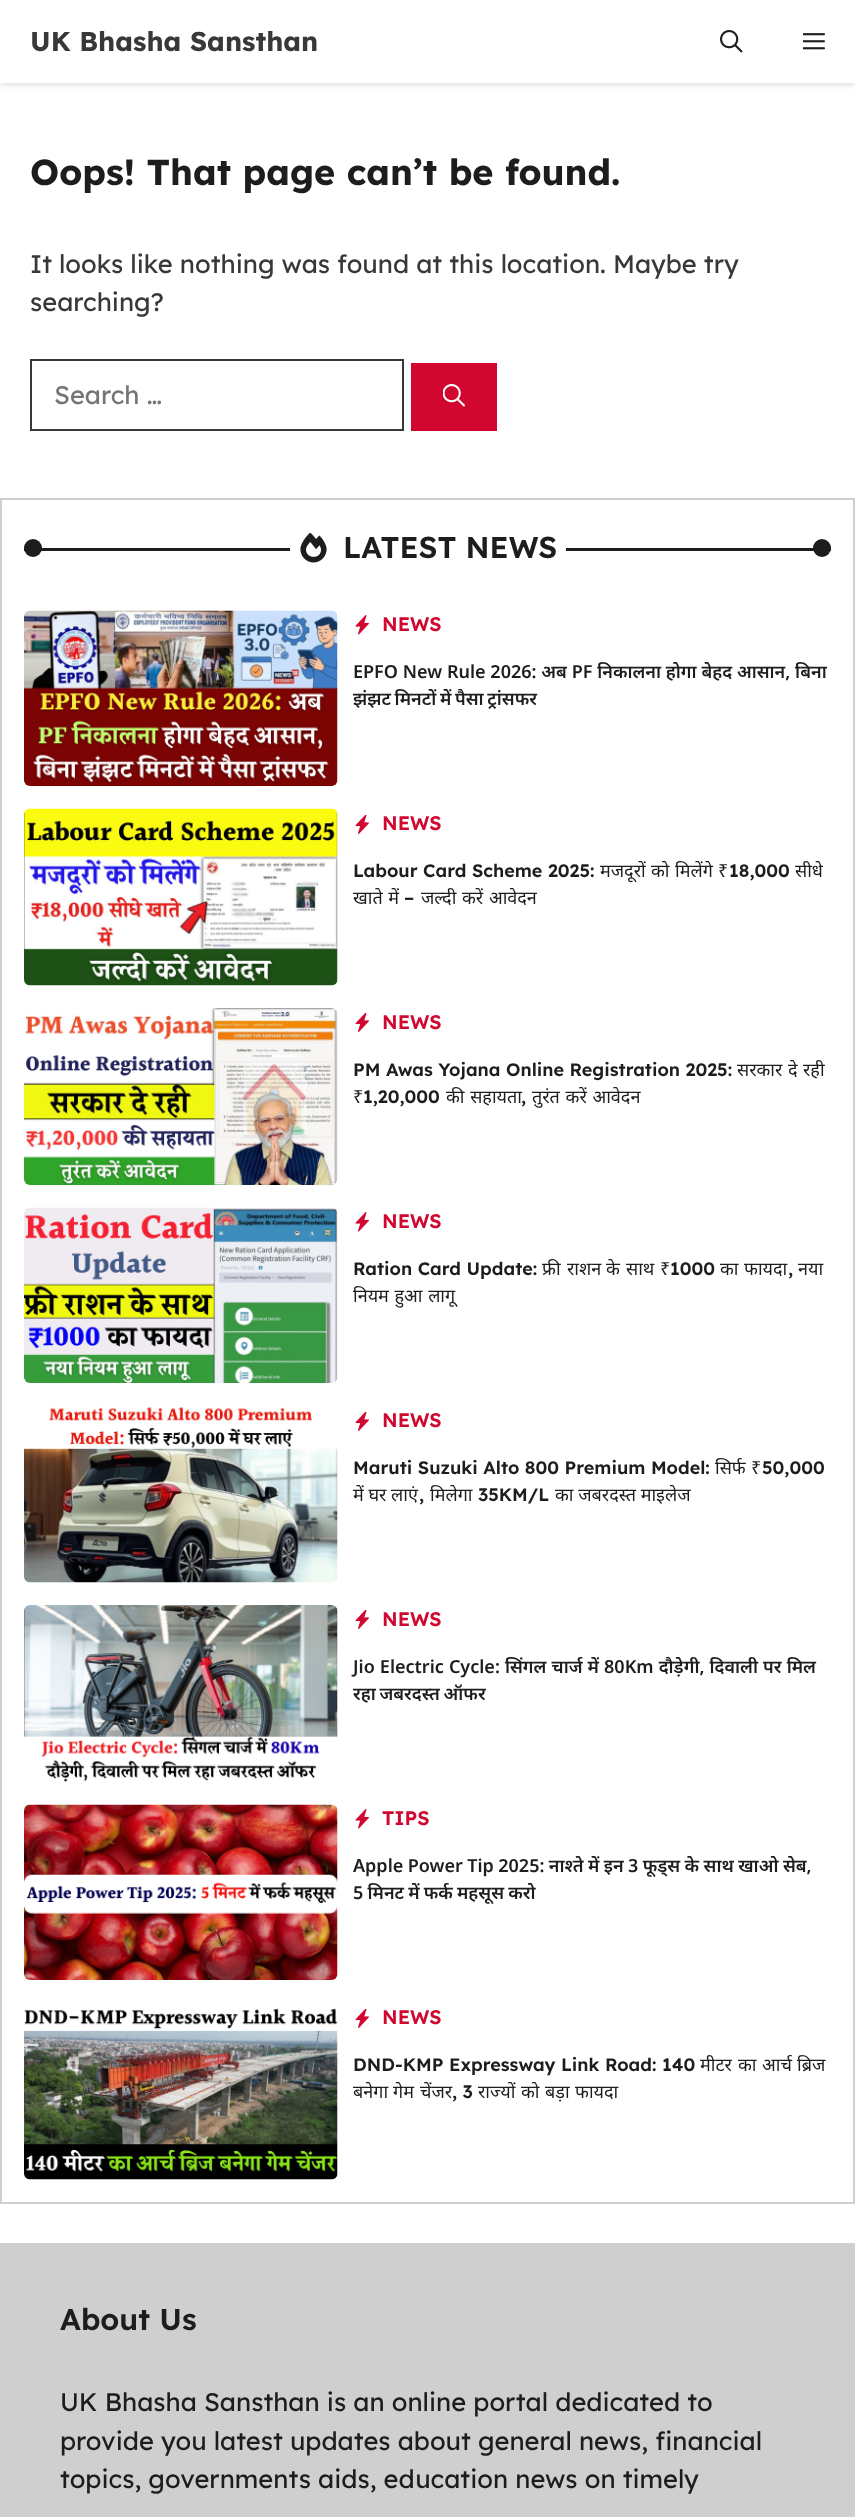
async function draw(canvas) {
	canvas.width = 855;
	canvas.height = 2517;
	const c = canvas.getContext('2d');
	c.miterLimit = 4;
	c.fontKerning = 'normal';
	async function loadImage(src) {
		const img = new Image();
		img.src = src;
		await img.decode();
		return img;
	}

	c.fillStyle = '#fff';
	c.fillRect(0, 0, 855, 2517);
	c.fillStyle = '#00000029';
	c.filter = 'blur(3px)';
	c.beginPath();
	c.rect(0, 2, 855, 82);
	c.fill();
	c.filter = 'none';
	c.fillStyle = '#fff';
	c.fillRect(0, 0, 855, 83);
	c.font = 'bold 27px Lexend Deca';
	c.fillStyle = '#383838';
	c.fillText('UK Bhasha Sansthan', 30, 51);
	c.drawImage(await loadImage('img1.png'), 720, 30, 23, 23);
	c.drawImage(await loadImage('img2.png'), 803, 33, 22, 17);
	c.font = 'bold 36px Lexend Deca';
	c.fillStyle = '#1d1d1d';
	c.fillText('Oops! That page can’t be found.', 30, 185);
	c.font = '25.5px Lexend Deca';
	c.fillStyle = '#383838';
	c.fillText('It looks like nothing was found at this location. Maybe try', 30, 273);
	c.fillText('searching?', 30, 311);
	c.strokeStyle = '#383838';
	c.lineWidth = 2;
	c.strokeRect(31, 360, 372, 70);
	c.fillStyle = '#757575';
	c.fillText('Search …', 54, 404);
	c.fillStyle = '#d1072f';
	c.fillRect(411, 363, 86, 68);
	c.drawImage(await loadImage('img3.png'), 443, 384, 22, 23);
	c.strokeStyle = '#cfcfcf';
	c.strokeRect(1, 499, 853, 1704);
	c.fillStyle = '#1d1d1d';
	c.fillRect(24, 548, 807, 3);
	c.beginPath();
	c.arc(33, 548, 9, 0, 2 * Math.PI);
	c.fill();
	c.fillStyle = '#fff';
	c.fillRect(290, 548, 276, 3);
	c.drawImage(await loadImage('img4.png'), 300, 533, 27, 30);
	c.font = '600 30px Lexend Deca';
	c.fillStyle = '#1d1d1d';
	c.fillText('LATEST NEWS', 343, 558);
	c.beginPath();
	c.arc(822, 548, 9, 0, 2 * Math.PI);
	c.fill();
	c.drawImage(await loadImage('img5.png'), 24, 610, 314, 176);
	c.drawImage(await loadImage('img6.png'), 355, 615, 14, 20);
	c.font = '600 19.5px Lexend Deca';
	c.fillStyle = '#d1072f';
	c.fillText('NEWS', 382, 631);
	c.wordSpacing = '0.1px';
	c.font = '600 18px Noto Sans';
	c.fillStyle = '#1d1d1d';
	c.fillText('EPFO New Rule 2026: अब PF निकालना होगा बेहद आसान, बिना', 353, 678);
	c.wordSpacing = '-1px';
	c.fillText('झंझट मिनटों में पैसा ट्रांसफर', 353, 705);
	c.drawImage(await loadImage('img7.png'), 24, 808, 314, 178);
	c.drawImage(await loadImage('img8.png'), 355, 815, 14, 19);
	c.wordSpacing = '0px';
	c.font = '600 19.5px Lexend Deca';
	c.fillStyle = '#d1072f';
	c.fillText('NEWS', 382, 830);
	c.font = '600 18px Lexend Deca';
	c.fillStyle = '#1d1d1d';
	c.fillText('Labour Card Scheme 2025:', 353, 877);
	c.font = '18px Noto Sans';
	for (const [text, x, y] of [
		['मजदूरों', 600, 877],
		['को', 651, 877],
		['मिलेंगे', 675, 877],
		['₹', 718, 877],
	]) {
		c.fillText(text, x, y);
	}
	c.font = '600 18px Lexend Deca';
	c.fillText('18,000', 729, 877);
	c.font = '18px Noto Sans';
	c.fillText('सीधे', 795, 877);
	c.wordSpacing = '1px';
	c.fillText('खाते में', 353, 904);
	c.wordSpacing = '0px';
	c.font = '600 18px Lexend Deca';
	c.fillText('–', 404, 904);
	c.wordSpacing = '1px';
	c.font = '18px Noto Sans';
	c.fillText('जल्दी करें आवेदन', 421, 904);
	c.drawImage(await loadImage('img9.png'), 24, 1008, 314, 177);
	c.drawImage(await loadImage('img8.png'), 355, 1013, 14, 19);
	c.wordSpacing = '0px';
	c.font = '600 19.5px Lexend Deca';
	c.fillStyle = '#d1072f';
	c.fillText('NEWS', 382, 1029);
	c.font = '600 18px Lexend Deca';
	c.fillStyle = '#1d1d1d';
	c.fillText('PM Awas Yojana Online Registration 2025:', 353, 1076);
	c.font = '18px Noto Sans';
	for (const [text, x, y] of [
		['सरकार', 737, 1076],
		['दे', 788, 1076],
		['रही', 803, 1076],
		['₹', 353, 1103],
	]) {
		c.fillText(text, x, y);
	}
	c.font = '600 18px Lexend Deca';
	c.fillText('1,20,000', 363, 1103);
	c.wordSpacing = '1px';
	c.font = '18px Noto Sans';
	c.fillText('की सहायता', 446, 1103);
	c.wordSpacing = '0px';
	c.font = '600 18px Lexend Deca';
	c.fillText(',', 521, 1103);
	c.wordSpacing = '1px';
	c.font = '18px Noto Sans';
	c.fillText('तुरंत करें आवेदन', 532, 1103);
	c.drawImage(await loadImage('img10.png'), 24, 1207, 314, 176);
	c.drawImage(await loadImage('img6.png'), 355, 1212, 14, 20);
	c.wordSpacing = '0px';
	c.font = '600 19.5px Lexend Deca';
	c.fillStyle = '#d1072f';
	c.fillText('NEWS', 382, 1228);
	c.font = '600 18px Lexend Deca';
	c.fillStyle = '#1d1d1d';
	c.fillText('Ration Card Update:', 353, 1275);
	c.font = '18px Noto Sans';
	for (const [text, x, y] of [
		['फ्री', 542, 1275],
		['राशन', 567, 1275],
		['के', 606, 1275],
		['साथ', 626, 1275],
		['₹', 660, 1275],
	]) {
		c.fillText(text, x, y);
	}
	c.font = '600 18px Lexend Deca';
	c.fillText('1000', 670, 1275);
	c.font = '18px Noto Sans';
	c.fillText('का', 720, 1275);
	c.fillText('फायदा', 744, 1275);
	c.font = '600 18px Lexend Deca';
	c.fillText(',', 788, 1275);
	c.font = '18px Noto Sans';
	c.fillText('नया', 798, 1275);
	c.wordSpacing = '1px';
	c.fillText('नियम हुआ लागू', 353, 1302);
	c.drawImage(await loadImage('img11.png'), 24, 1406, 314, 177);
	c.drawImage(await loadImage('img8.png'), 355, 1412, 14, 19);
	c.wordSpacing = '0px';
	c.font = '600 19.5px Lexend Deca';
	c.fillStyle = '#d1072f';
	c.fillText('NEWS', 382, 1427);
	c.font = '600 18px Lexend Deca';
	c.fillStyle = '#1d1d1d';
	c.fillText('Maruti Suzuki Alto 800 Premium Model:', 353, 1474);
	c.font = '18px Noto Sans';
	c.fillText('सिर्फ', 715, 1474);
	c.fillText('₹', 751, 1474);
	c.font = '600 18px Lexend Deca';
	c.fillText('50,000', 762, 1474);
	c.font = '18px Noto Sans';
	c.fillText('में घर लाएं', 353, 1501);
	c.font = '600 18px Lexend Deca';
	c.fillText(',', 419, 1501);
	c.font = '18px Noto Sans';
	c.fillText('मिलेगा', 430, 1501);
	c.font = '600 18px Lexend Deca';
	c.fillText('35KM/L', 478, 1501);
	c.font = '18px Noto Sans';
	c.fillText('का जबरदस्त माइलेज', 555, 1501);
	c.drawImage(await loadImage('img12.png'), 24, 1605, 314, 177);
	c.drawImage(await loadImage('img8.png'), 355, 1610, 14, 19);
	c.font = '600 19.5px Lexend Deca';
	c.fillStyle = '#d1072f';
	c.fillText('NEWS', 382, 1626);
	c.wordSpacing = '0.4px';
	c.font = '600 18px Noto Sans';
	c.fillStyle = '#1d1d1d';
	c.fillText('Jio Electric Cycle: सिंगल चार्ज में 80Km दौड़ेगी, दिवाली पर मिल', 353, 1673);
	c.wordSpacing = '-1px';
	c.fillText('रहा जबरदस्त ऑफर', 353, 1700);
	c.drawImage(await loadImage('img13.png'), 24, 1804, 314, 176);
	c.drawImage(await loadImage('img6.png'), 355, 1809, 14, 20);
	c.wordSpacing = '0px';
	c.font = '600 19.5px Lexend Deca';
	c.fillStyle = '#d1072f';
	c.fillText('TIPS', 382, 1825);
	c.wordSpacing = '-0.25px';
	c.font = '600 18px Noto Sans';
	c.fillStyle = '#1d1d1d';
	c.fillText('Apple Power Tip 2025: नाश्ते में इन 3 फूड्स के साथ खाओ सेब,', 353, 1872);
	c.wordSpacing = '-0.5px';
	c.fillText('5 मिनट में फर्क महसूस करो', 353, 1899);
	c.drawImage(await loadImage('img14.png'), 24, 2008, 314, 172);
	c.drawImage(await loadImage('img8.png'), 355, 2009, 14, 19);
	c.wordSpacing = '0px';
	c.font = '600 19.5px Lexend Deca';
	c.fillStyle = '#d1072f';
	c.fillText('NEWS', 382, 2024);
	c.font = '600 18px Lexend Deca';
	c.fillStyle = '#1d1d1d';
	c.fillText('DND-KMP Expressway Link Road: 140', 353, 2071);
	c.font = '18px Noto Sans';
	for (const [text, x, y] of [
		['मीटर', 700, 2071],
		['का', 738, 2071],
		['आर्च', 762, 2071],
		['ब्रिज', 797, 2071],
		['बनेगा', 353, 2098],
		['गेम', 393, 2098],
		['चेंजर', 420, 2098],
	]) {
		c.fillText(text, x, y);
	}
	c.font = '600 18px Lexend Deca';
	c.fillText(', 3', 452, 2098);
	c.font = '18px Noto Sans';
	for (const [text, x, y] of [
		['राज्यों', 478, 2098],
		['को', 521, 2098],
		['बड़ा', 545, 2098],
		['फायदा', 575, 2098],
	]) {
		c.fillText(text, x, y);
	}
	c.fillStyle = '#cfcfcf';
	c.fillRect(0, 2243, 855, 274);
	c.font = '600 30px Lexend Deca';
	c.fillStyle = '#1d1d1d';
	c.fillText('About Us', 60, 2330);
	c.font = '25.5px Lexend Deca';
	for (const [text, x, y] of [
		['UK Bhasha Sansthan is an online portal dedicated to', 60, 2411],
		['provide you latest updates about general news, financial', 60, 2450],
		['topics, governments aids, education news on timely', 60, 2488],
	]) {
		c.fillText(text, x, y);
	}
}

draw(document.querySelector('canvas'));
